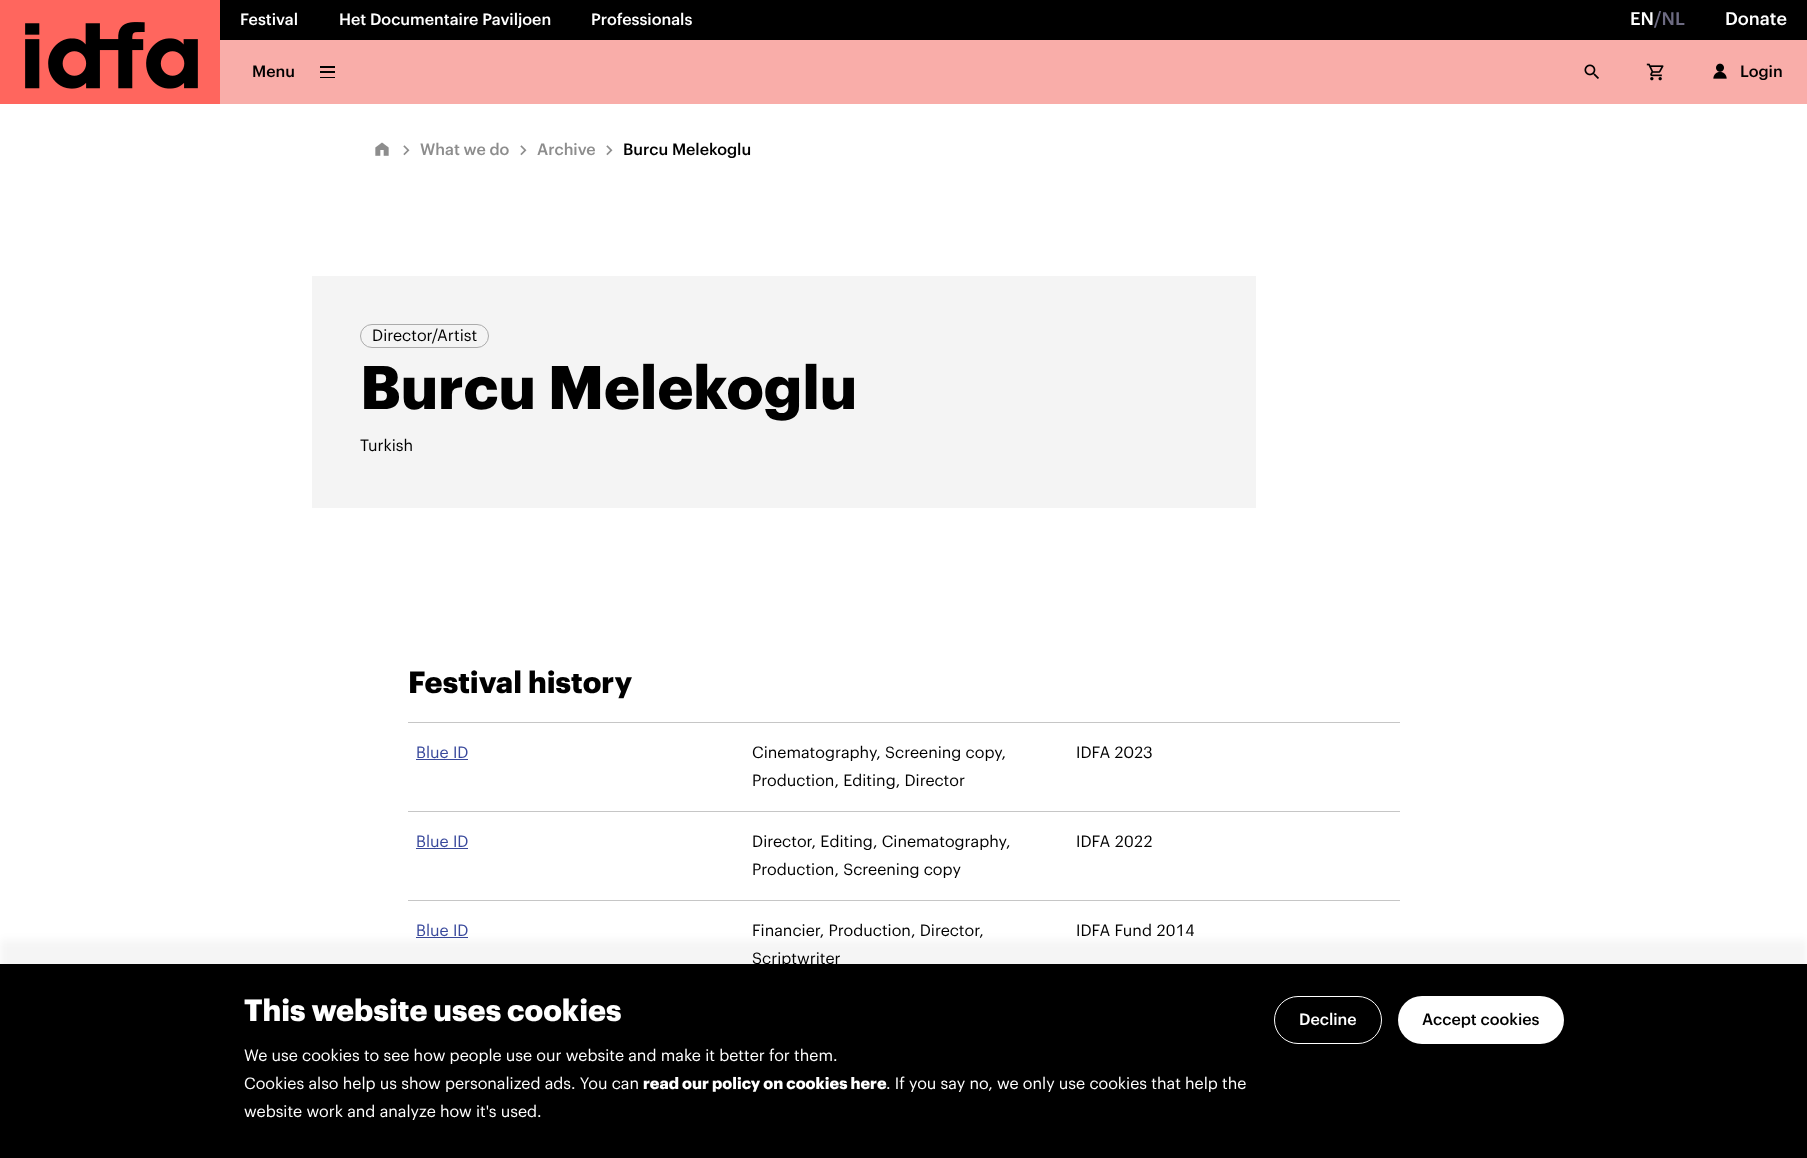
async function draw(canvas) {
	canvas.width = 1807;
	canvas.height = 1158;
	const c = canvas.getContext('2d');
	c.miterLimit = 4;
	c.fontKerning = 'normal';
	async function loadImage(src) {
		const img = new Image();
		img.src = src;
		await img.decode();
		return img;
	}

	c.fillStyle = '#fff';
	c.fillRect(0, 0, 1807, 1158);
	c.fillStyle = '#ff665e';
	c.fillRect(0, 0, 220, 104);
	c.drawImage(await loadImage('img1.png'), 25, 22, 173, 67);
	c.fillStyle = '#000';
	c.fillRect(220, 0, 1587, 40);
	c.font = '500 16px Graphik';
	c.fillStyle = '#fff';
	for (const [text, x, y] of [
		['Festival', 240, 25],
		['Het Documentaire Paviljoen', 339, 25],
		['Professionals', 591, 25],
	]) {
		c.fillText(text, x, y);
	}
	c.font = '500 18px Graphik';
	c.fillText('EN', 1630, 25);
	c.fillStyle = '#6d6b82';
	c.fillText('/NL', 1654, 25);
	c.fillStyle = '#fff';
	c.fillText('Donate', 1725, 25);
	c.fillStyle = '#f9ada9';
	c.fillRect(220, 40, 1587, 64);
	c.font = '500 16px Graphik';
	c.fillStyle = '#000';
	c.fillText('Menu', 252, 77);
	for (const [x, y, w, h, color] of [
		[320, 66, 15, 2, '#000'],
		[320, 71, 15, 2, '#000'],
		[320, 77, 15, 1, '#000'],
	]) {
		c.fillStyle = color;
		c.fillRect(x, y, w, h);
	}
	c.drawImage(await loadImage('img2.png'), 1584, 64, 15, 15);
	c.drawImage(await loadImage('img3.png'), 1646, 63, 18, 18);
	c.drawImage(await loadImage('img4.png'), 1713, 63, 14, 16);
	c.fillText('Login', 1740, 77);
	c.drawImage(await loadImage('img5.png'), 375, 142, 14, 14);
	c.drawImage(await loadImage('img6.png'), 403, 145, 7, 11);
	c.fillStyle = '#8d8d8d';
	c.fillText('What we do', 420, 155);
	c.drawImage(await loadImage('img6.png'), 520, 145, 7, 11);
	c.fillText('Archive', 537, 155);
	c.drawImage(await loadImage('img6.png'), 606, 145, 7, 11);
	c.fillStyle = '#000';
	c.fillText('Burcu Melekoglu', 623, 155);
	c.fillStyle = '#f4f4f4';
	c.fillRect(312, 276, 944, 232);
	c.beginPath();
	c.roundRect(360.5, 324.5, 128, 23, 11.5);
	c.strokeStyle = '#ababab';
	c.stroke();
	c.font = '16px Graphik';
	c.fillStyle = '#000';
	c.fillText('Director/Artist', 372, 341);
	c.font = 'bold 60px Graphik';
	c.fillText('Burcu Melekoglu', 360, 409);
	c.font = '16px Graphik';
	c.fillText('Turkish', 360, 451);
	c.font = 'bold 30px Graphik';
	c.fillText('Festival history', 408, 693);
	c.fillStyle = '#c6c6c6';
	c.fillRect(408, 722, 992, 1);
	c.font = '16px Graphik';
	c.fillStyle = '#39499c';
	c.fillText('Blue ID', 416, 758);
	c.fillRect(416, 759, 52, 1);
	c.fillStyle = '#000';
	for (const [text, x, y] of [
		['Cinematography, Screening copy,', 752, 758],
		['Production, Editing, Director', 752, 786],
		['IDFA 2023', 1076, 758],
	]) {
		c.fillText(text, x, y);
	}
	c.fillStyle = '#c6c6c6';
	c.fillRect(408, 811, 992, 1);
	c.fillStyle = '#39499c';
	c.fillText('Blue ID', 416, 847);
	c.fillRect(416, 848, 52, 1);
	c.fillStyle = '#000';
	c.fillText('Director, Editing, Cinematography,', 752, 847);
	c.fillText('Production, Screening copy', 752, 875);
	c.font = '16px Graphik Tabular';
	c.fillText('IDFA 2022', 1076, 847);
	c.fillStyle = '#c6c6c6';
	c.fillRect(408, 900, 992, 1);
	c.font = '16px Graphik';
	c.fillStyle = '#39499c';
	c.fillText('Blue ID', 416, 936);
	c.fillRect(416, 937, 52, 1);
	c.fillStyle = '#000';
	c.fillText('Financier, Production, Director,', 752, 936);
	c.fillText('Scriptwriter', 752, 964);
	c.font = '16px Graphik Tabular';
	c.fillText('IDFA Fund 2014', 1076, 936);
	c.fillStyle = '#0000000a';
	c.filter = 'blur(4px)';
	c.beginPath();
	c.rect(0, 940, 1807, 194);
	c.fill();
	c.filter = 'none';
	c.fillStyle = '#000';
	c.fillRect(0, 964, 1807, 194);
	c.font = 'bold 30px Graphik';
	c.fillStyle = '#fff';
	c.fillText('This website uses cookies', 244, 1021);
	c.font = '16px Graphik';
	c.fillText('We use cookies to see how people use our website and make it better for them.', 244, 1061);
	c.fillText('Cookies also help us show personalized ads. You can', 244, 1089);
	c.font = 'bold 16px Graphik';
	c.fillText('read our policy on cookies here', 643, 1089);
	c.font = '16px Graphik';
	c.fillText('. If you say no, we only use cookies that help the', 886, 1089);
	c.fillText('website work and analyze how it\'s used.', 244, 1117);
	c.beginPath();
	c.roundRect(1274.5, 996.5, 107, 47, 23.5);
	c.strokeStyle = '#fff';
	c.stroke();
	c.font = '500 16px Graphik';
	c.fillText('Decline', 1299, 1025);
	c.beginPath();
	c.roundRect(1398, 996, 166, 48, 24);
	c.fill();
	c.fillStyle = '#000';
	c.fillText('Accept cookies', 1422, 1025);
}

draw(document.querySelector('canvas'));
